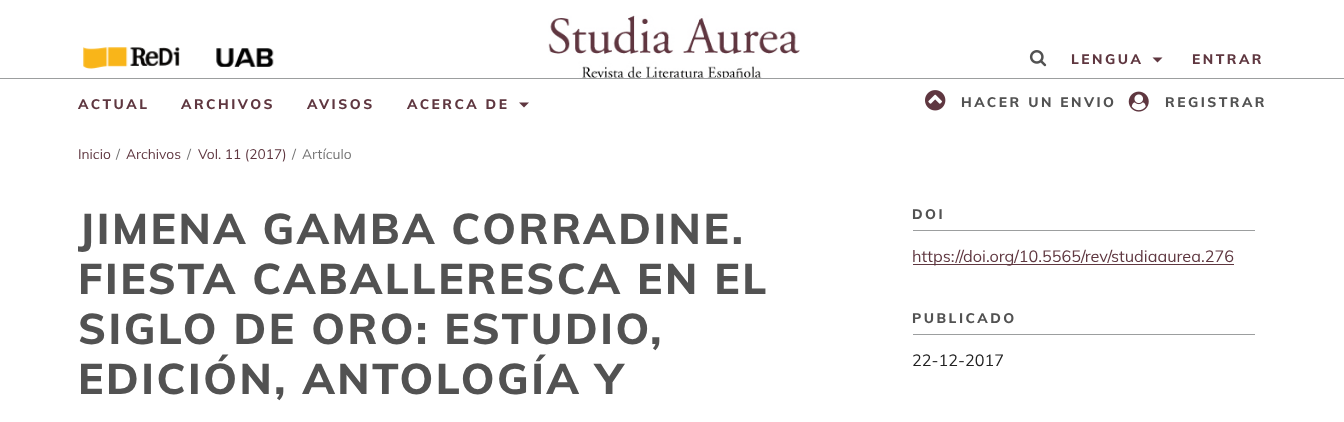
async function draw(canvas) {
	canvas.width = 1344;
	canvas.height = 422;
	const c = canvas.getContext('2d');
	c.miterLimit = 4;
	c.fontKerning = 'normal';
	async function loadImage(src) {
		const img = new Image();
		img.src = src;
		await img.decode();
		return img;
	}

	c.fillStyle = '#fff';
	c.fillRect(0, 0, 1344, 422);
	c.drawImage(await loadImage('img1.png'), 83, 47, 97, 22);
	c.drawImage(await loadImage('img2.png'), 216, 48, 58, 19);
	c.drawImage(await loadImage('img3.png'), 548, 15, 252, 63);
	c.drawImage(await loadImage('img4.png'), 1029, 50, 18, 17);
	c.letterSpacing = '2.5px';
	c.font = '800 13.75px Muli';
	c.fillStyle = '#5f3740';
	c.fillText('LENGUA', 1071, 64);
	c.beginPath();
	c.moveTo(1152.5, 57.5);
	c.lineTo(1162.5, 57.5);
	c.lineTo(1157.5, 62.5);
	c.closePath();
	c.fill();
	c.fillText('ENTRAR', 1192, 64);
	c.fillStyle = '#9c9e9f';
	c.fillRect(0, 78, 1344, 1);
	c.fillStyle = '#5f3740';
	for (const [text, x, y] of [
		['ACTUAL', 78, 109],
		['ARCHIVOS', 181, 109],
		['AVISOS', 307, 109],
		['ACERCA DE', 407, 109],
	]) {
		c.fillText(text, x, y);
	}
	c.beginPath();
	c.moveTo(519, 102.5);
	c.lineTo(529, 102.5);
	c.lineTo(524, 107.5);
	c.closePath();
	c.fill();
	c.drawImage(await loadImage('img5.png'), 925, 90, 21, 21);
	c.fillStyle = '#525252';
	c.fillText('HACER UN ENVIO', 961, 107);
	c.drawImage(await loadImage('img6.png'), 1128, 91, 21, 21);
	c.fillText('REGISTRAR', 1165, 107);
	c.letterSpacing = '0px';
	c.font = '13.75px Muli';
	c.fillStyle = '#5f3740';
	c.fillText('Inicio', 78, 159);
	c.fillStyle = '#757575';
	c.fillText('/', 116, 159);
	c.fillStyle = '#5f3740';
	c.fillText('Archivos', 126, 159);
	c.fillStyle = '#757575';
	c.fillText('/', 187, 159);
	c.fillStyle = '#5f3740';
	c.fillText('Vol. 11 (2017)', 198, 159);
	c.fillStyle = '#757575';
	c.fillText('/', 292, 159);
	c.fillText('Artículo', 302, 159);
	c.letterSpacing = '2.5px';
	c.font = '800 42.5px Muli';
	c.fillStyle = '#525252';
	for (const [text, x, y] of [
		['JIMENA GAMBA CORRADINE.', 78, 244],
		['FIESTA CABALLERESCA EN EL', 78, 294],
		['SIGLO DE ORO: ESTUDIO,', 78, 344],
		['EDICIÓN, ANTOLOGÍA Y', 78, 394],
	]) {
		c.fillText(text, x, y);
	}
	c.fillStyle = '#9c9e9f';
	c.fillRect(913, 230, 342, 1);
	c.font = '800 13.75px Muli';
	c.fillStyle = '#525252';
	c.fillText('DOI', 912, 219);
	c.fillStyle = '#5f3740';
	c.fillRect(913, 264, 321, 1);
	c.letterSpacing = '0px';
	c.font = '16.25px Muli';
	c.fillText('https://doi.org/10.5565/rev/studiaaurea.276', 912, 262);
	c.fillStyle = '#9c9e9f';
	c.fillRect(913, 334, 342, 1);
	c.letterSpacing = '2.5px';
	c.font = '800 13.75px Muli';
	c.fillStyle = '#525252';
	c.fillText('PUBLICADO', 912, 323);
	c.letterSpacing = '0px';
	c.font = '16.25px Muli';
	c.fillStyle = '#212121';
	c.fillText('22-12-2017', 912, 366);
}

draw(document.querySelector('canvas'));
